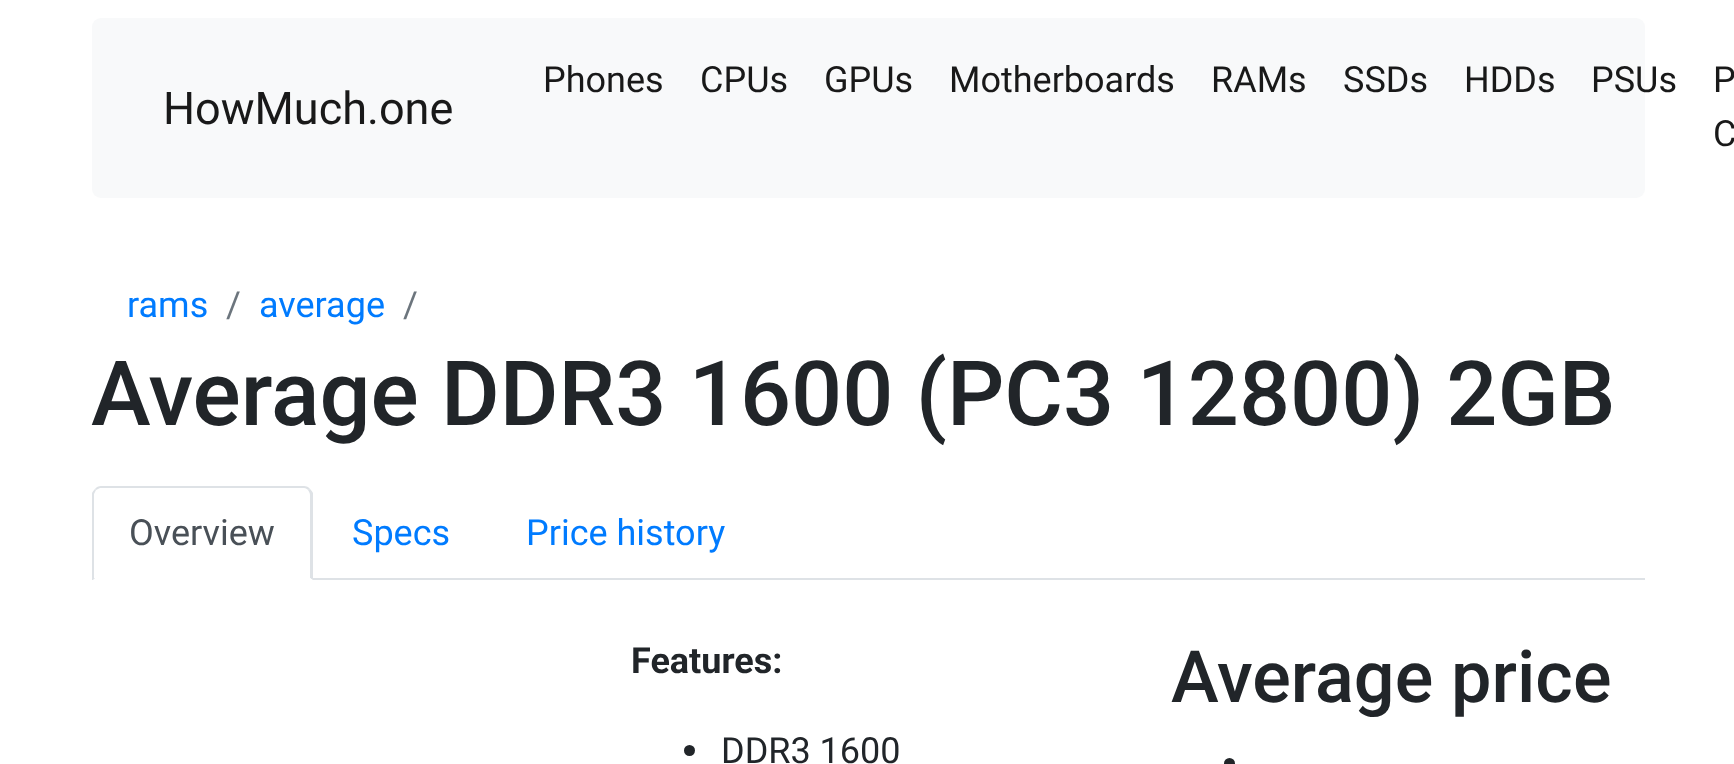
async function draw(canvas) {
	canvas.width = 1734;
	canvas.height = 764;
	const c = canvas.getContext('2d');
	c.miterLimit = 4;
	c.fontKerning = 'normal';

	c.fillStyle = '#fff';
	c.fillRect(0, 0, 1734, 764);
	c.fillStyle = '#f8f9fa';
	c.beginPath();
	c.roundRect(92, 18, 1553, 180, 9);
	c.fill();
	c.font = '45px Roboto';
	c.fillStyle = '#191919';
	c.fillText('HowMuch.one', 163, 124);
	c.font = '36px Roboto';
	for (const [text, x, y] of [
		['Phones', 543, 92],
		['CPUs', 700, 92],
		['GPUs', 824, 92],
		['Motherboards', 949, 92],
		['RAMs', 1211, 92],
		['SSDs', 1343, 92],
		['HDDs', 1464, 92],
		['PSUs', 1591, 92],
		['P', 1713, 92],
		['C', 1713, 146],
	]) {
		c.fillText(text, x, y);
	}
	c.fillStyle = '#007bff';
	c.fillText('rams', 127, 317);
	c.fillStyle = '#6c757d';
	c.fillText('/', 226, 317);
	c.fillStyle = '#007bff';
	c.fillText('average', 259, 317);
	c.fillStyle = '#6c757d';
	c.fillText('/', 403, 317);
	c.font = '500 90px Roboto';
	c.fillStyle = '#212529';
	c.fillText('Average DDR3 1600 (PC3 12800) 2GB', 91, 425);
	c.fillStyle = '#dee2e6';
	c.fillRect(313, 578, 1332, 2);
	c.beginPath();
	c.moveTo(101, 486);
	c.bezierCurveTo(99, 486, 96, 487, 95, 489);
	c.lineTo(96, 490);
	c.lineTo(100, 488);
	c.lineTo(304, 488);
	c.bezierCurveTo(306, 488, 307, 489, 308, 490);
	c.lineTo(310, 489);
	c.bezierCurveTo(309, 487, 306, 486, 304, 486);
	c.closePath();
	c.fill();
	c.beginPath();
	c.moveTo(313, 580);
	c.lineTo(310, 578);
	c.lineTo(310, 495);
	c.bezierCurveTo(310, 493, 309, 492, 308, 490);
	c.lineTo(310, 489);
	c.bezierCurveTo(311, 490, 312, 491, 313, 493);
	c.closePath();
	c.fill();
	c.fillStyle = '#fff';
	c.beginPath();
	c.moveTo(312, 580);
	c.lineTo(93, 580);
	c.lineTo(95, 578);
	c.lineTo(310, 578);
	c.closePath();
	c.fill();
	c.fillStyle = '#dee2e6';
	c.beginPath();
	c.moveTo(92, 493);
	c.bezierCurveTo(93, 491, 94, 490, 95, 489);
	c.lineTo(96, 490);
	c.lineTo(94, 494);
	c.lineTo(94, 578);
	c.lineTo(95, 578);
	c.lineTo(93, 580);
	c.lineTo(92, 580);
	c.closePath();
	c.fill();
	c.font = '36px Roboto';
	c.fillStyle = '#495057';
	c.fillText('Overview', 129, 545);
	c.fillStyle = '#007bff';
	c.fillText('Specs', 352, 545);
	c.fillText('Price history', 526, 545);
	c.font = 'bold 36px Roboto';
	c.fillStyle = '#212529';
	c.fillText('Features:', 631, 673);
	c.beginPath();
	c.arc(689.5, 750.5, 5.5, 0, 2 * Math.PI);
	c.fill();
	c.font = '36px Roboto';
	c.fillText('DDR3 1600', 721, 763);
	c.font = '500 72px Roboto';
	c.fillText('Average price', 1171, 702);
	c.beginPath();
	c.roundRect(1224, 758, 11, 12, 5.5);
	c.fill();
}

draw(document.querySelector('canvas'));
